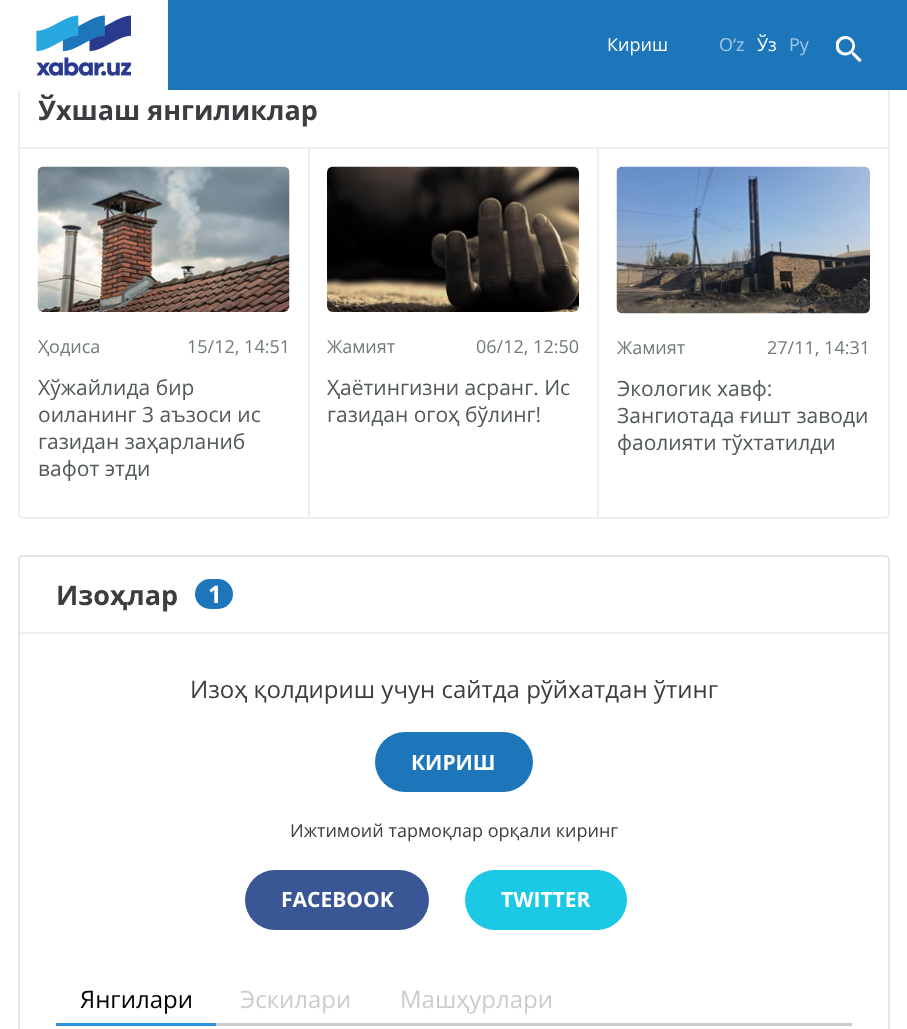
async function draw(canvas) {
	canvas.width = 907;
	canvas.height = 1029;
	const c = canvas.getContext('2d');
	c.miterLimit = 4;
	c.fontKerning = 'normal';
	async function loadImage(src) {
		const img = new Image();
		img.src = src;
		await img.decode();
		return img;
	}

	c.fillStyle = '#fff';
	c.fillRect(0, 0, 907, 1029);
	c.beginPath();
	c.roundRect(19, 72, 870, 446, 5);
	c.strokeStyle = '#eee';
	c.lineWidth = 2;
	c.stroke();
	c.fillStyle = '#1d76b9';
	c.fillRect(168, 0, 739, 90);
	c.fillStyle = '#fff';
	c.fillRect(18, 71, 150, 19);
	c.drawImage(await loadImage('img1.png'), 36, 15, 95, 61);
	c.font = '18px Open Sans';
	c.fillText('Кириш', 607, 51);
	c.fillStyle = '#a5c8e3';
	c.fillText('O‘z', 719, 51);
	c.fillStyle = '#fff';
	c.fillText('Ўз', 757, 51);
	c.fillStyle = '#a5c8e3';
	c.fillText('Ру', 789, 51);
	c.drawImage(await loadImage('img2.png'), 836, 36, 26, 27);
	c.fillStyle = '#eee';
	c.fillRect(20, 147, 868, 2);
	c.font = 'bold 27px Open Sans';
	c.fillStyle = '#3b3d40';
	c.fillText('Ўхшаш янгиликлар', 38, 120);
	c.fillStyle = '#eee';
	c.fillRect(308, 149, 2, 369);
	c.drawImage(await loadImage('img3.png'), 37, 166, 253, 146);
	c.font = '18px Open Sans';
	c.fillStyle = '#707a7c';
	c.fillText('Ҳодиса', 38, 353);
	c.fillText('15/12, 14:51', 187, 353);
	c.font = '21px Open Sans';
	c.fillStyle = '#52595b';
	for (const [text, x, y] of [
		['Хўжайлида бир', 38, 395],
		['оиланинг 3 аъзоси ис', 38, 422],
		['газидан заҳарланиб', 38, 449],
		['вафот этди', 38, 476],
	]) {
		c.fillText(text, x, y);
	}
	c.fillStyle = '#eee';
	c.fillRect(597, 149, 2, 369);
	c.drawImage(await loadImage('img4.png'), 327, 166, 252, 146);
	c.font = '18px Open Sans';
	c.fillStyle = '#707a7c';
	c.fillText('Жамият', 327, 353);
	c.fillText('06/12, 12:50', 476, 353);
	c.font = '21px Open Sans';
	c.fillStyle = '#52595b';
	c.fillText('Ҳаётингизни асранг. Ис', 327, 395);
	c.fillText('газидан огоҳ бўлинг!', 327, 422);
	c.drawImage(await loadImage('img5.png'), 616, 166, 254, 148);
	c.font = '18px Open Sans';
	c.fillStyle = '#707a7c';
	c.fillText('Жамият', 617, 354);
	c.fillText('27/11, 14:31', 767, 354);
	c.font = '21px Open Sans';
	c.fillStyle = '#52595b';
	for (const [text, x, y] of [
		['Экологик хавф:', 617, 396],
		['Зангиотада ғишт заводи', 617, 423],
		['фаолияти тўхтатилди', 617, 450],
	]) {
		c.fillText(text, x, y);
	}
	c.beginPath();
	c.roundRect(19, 556, 870, 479, 4);
	c.strokeStyle = '#e4e4e4';
	c.stroke();
	c.fillStyle = '#eee';
	c.fillRect(20, 632, 868, 2);
	c.font = 'bold 27px Open Sans';
	c.fillStyle = '#3b3d40';
	c.fillText('Изоҳлар', 56, 605);
	c.fillStyle = '#1d76b9';
	c.beginPath();
	c.roundRect(195, 579, 38, 30, 15);
	c.fill();
	c.font = 'bold 24px Open Sans';
	c.fillStyle = '#fff';
	c.fillText('1', 208, 603);
	c.font = '24px Open Sans';
	c.fillStyle = '#3b3d40';
	c.fillText('Изоҳ қолдириш учун сайтда рўйхатдан ўтинг', 190, 698);
	c.fillStyle = '#1d76b9';
	c.beginPath();
	c.roundRect(375, 732, 158, 60, 30);
	c.fill();
	c.font = 'bold 21px Open Sans';
	c.fillStyle = '#fff';
	c.fillText('КИРИШ', 411, 770);
	c.font = '18px Open Sans';
	c.fillStyle = '#3b3d40';
	c.fillText('Ижтимоий тармоқлар орқали киринг', 290, 837);
	c.fillStyle = '#3a5695';
	c.beginPath();
	c.roundRect(245, 870, 184, 60, 30);
	c.fill();
	c.font = 'bold 21px Open Sans';
	c.fillStyle = '#fff';
	c.fillText('FACEBOOK', 281, 907);
	c.fillStyle = '#1cc9e4';
	c.beginPath();
	c.roundRect(465, 870, 162, 60, 30);
	c.fill();
	c.fillStyle = '#fff';
	c.fillText('TWITTER', 501, 907);
	c.fillStyle = '#ccc';
	c.fillRect(216, 1023, 636, 3);
	c.font = '24px Open Sans';
	c.fillStyle = '#000';
	c.fillText('Янгилари', 80, 1008);
	c.fillStyle = '#2b91de';
	c.fillRect(56, 1023, 160, 3);
	c.fillStyle = '#ccc';
	c.fillText('Эскилари', 240, 1008);
	c.fillText('Машҳурлари', 400, 1008);
}

draw(document.querySelector('canvas'));
